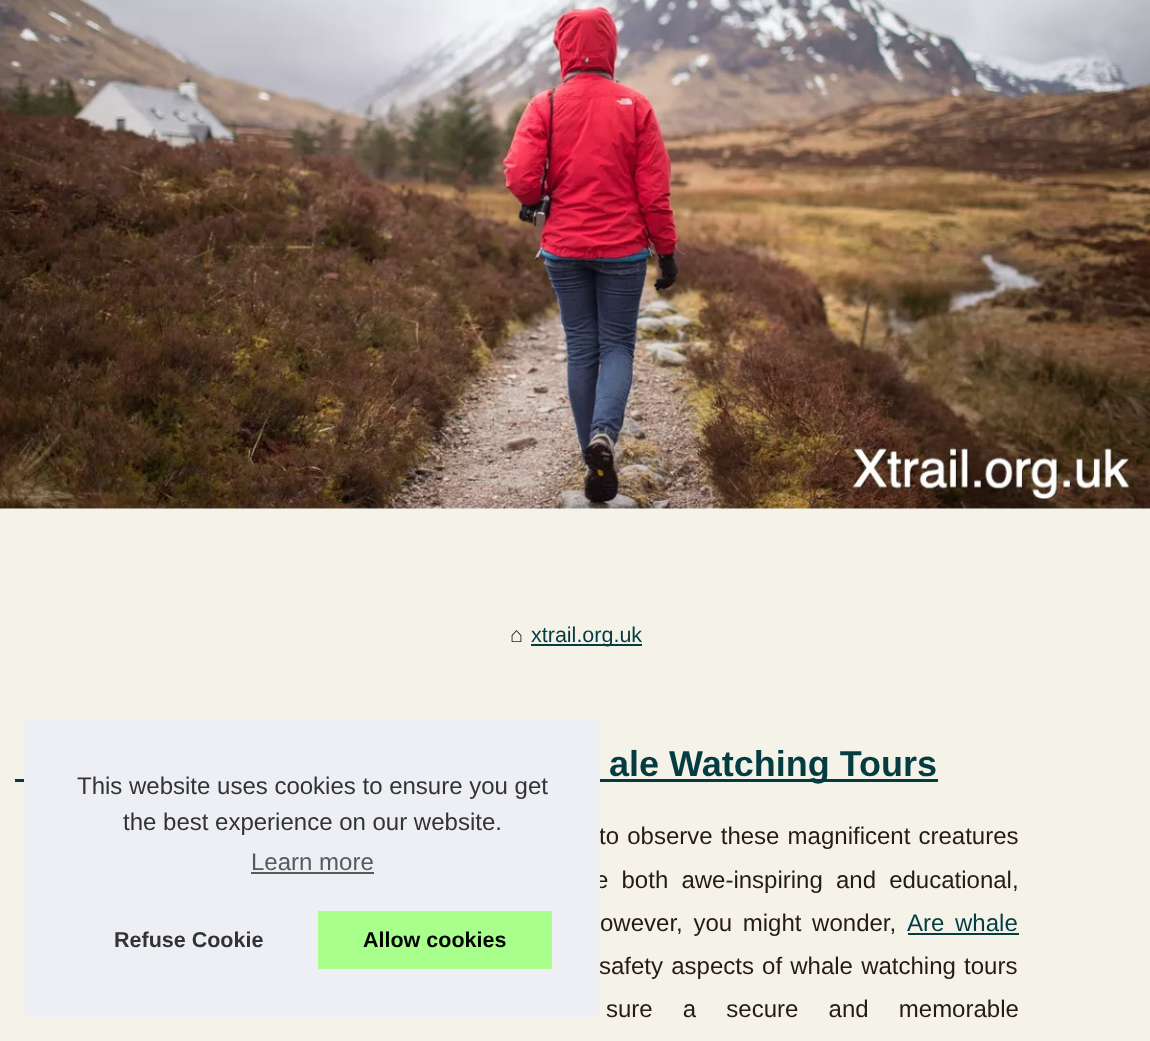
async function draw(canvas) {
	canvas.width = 1150;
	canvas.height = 1041;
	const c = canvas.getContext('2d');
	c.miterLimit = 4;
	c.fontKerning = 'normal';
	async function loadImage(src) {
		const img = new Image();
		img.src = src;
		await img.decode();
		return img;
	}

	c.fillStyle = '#f5fafc';
	c.fillRect(0, 0, 1150, 1041);
	c.drawImage(await loadImage('img1.png'), 0, 0, 1150, 509);
	c.fillStyle = '#f5f3e8';
	c.fillRect(0, 509, 1150, 532);
	c.fillStyle = '#053c42';
	c.fillRect(15, 779, 923, 3);
	c.wordSpacing = '1.5px';
	c.font = '24px Liberation Sans';
	c.fillStyle = '#251b12';
	c.fillText('to observe these magnificent creatures', 599, 844);
	c.wordSpacing = '6.5px';
	c.fillText('e both awe-inspiring and educational,', 595, 888);
	c.wordSpacing = '1.5px';
	c.fillText('safety aspects of whale watching tours', 599, 974);
	c.fillStyle = '#edeff5';
	c.fillRect(24, 720, 576, 297);
	c.wordSpacing = '0px';
	c.fillStyle = '#333';
	c.fillText('This website uses cookies to ensure you get', 77, 794);
	c.fillText('the best experience on our website.', 123, 830);
	c.fillStyle = '#58595a';
	c.fillText('Learn more', 251, 870);
	c.fillRect(251, 872, 123, 2);
	c.font = 'bold 21.5px Liberation Sans';
	c.fillStyle = '#333';
	c.fillText('Refuse Cookie', 114, 947);
	c.fillStyle = '#a8ff8c';
	c.fillRect(318, 911, 234, 58);
	c.fillStyle = '#000';
	c.fillText('Allow cookies', 363, 947);
	c.font = '21.5px Liberation Sans';
	c.fillStyle = '#251b12';
	c.fillText('⌂', 510, 642);
	c.fillStyle = '#053c42';
	c.fillRect(531, 644, 111, 2);
	c.fillText('xtrail.org.uk', 531, 642);
	c.font = 'bold 36px Liberation Sans';
	c.fillText('ale Watching Tours', 609, 776);
	c.wordSpacing = '4px';
	c.font = '24px Liberation Sans';
	c.fillStyle = '#251b12';
	c.fillText('owever, you might wonder,', 600, 931);
	c.fillStyle = '#053c42';
	c.fillText('Are whale', 907, 931);
	c.fillRect(908, 933, 111, 2);
	c.wordSpacing = '23.5px';
	c.fillStyle = '#251b12';
	c.fillText('sure a secure and memorable', 606, 1017);
}

draw(document.querySelector('canvas'));
